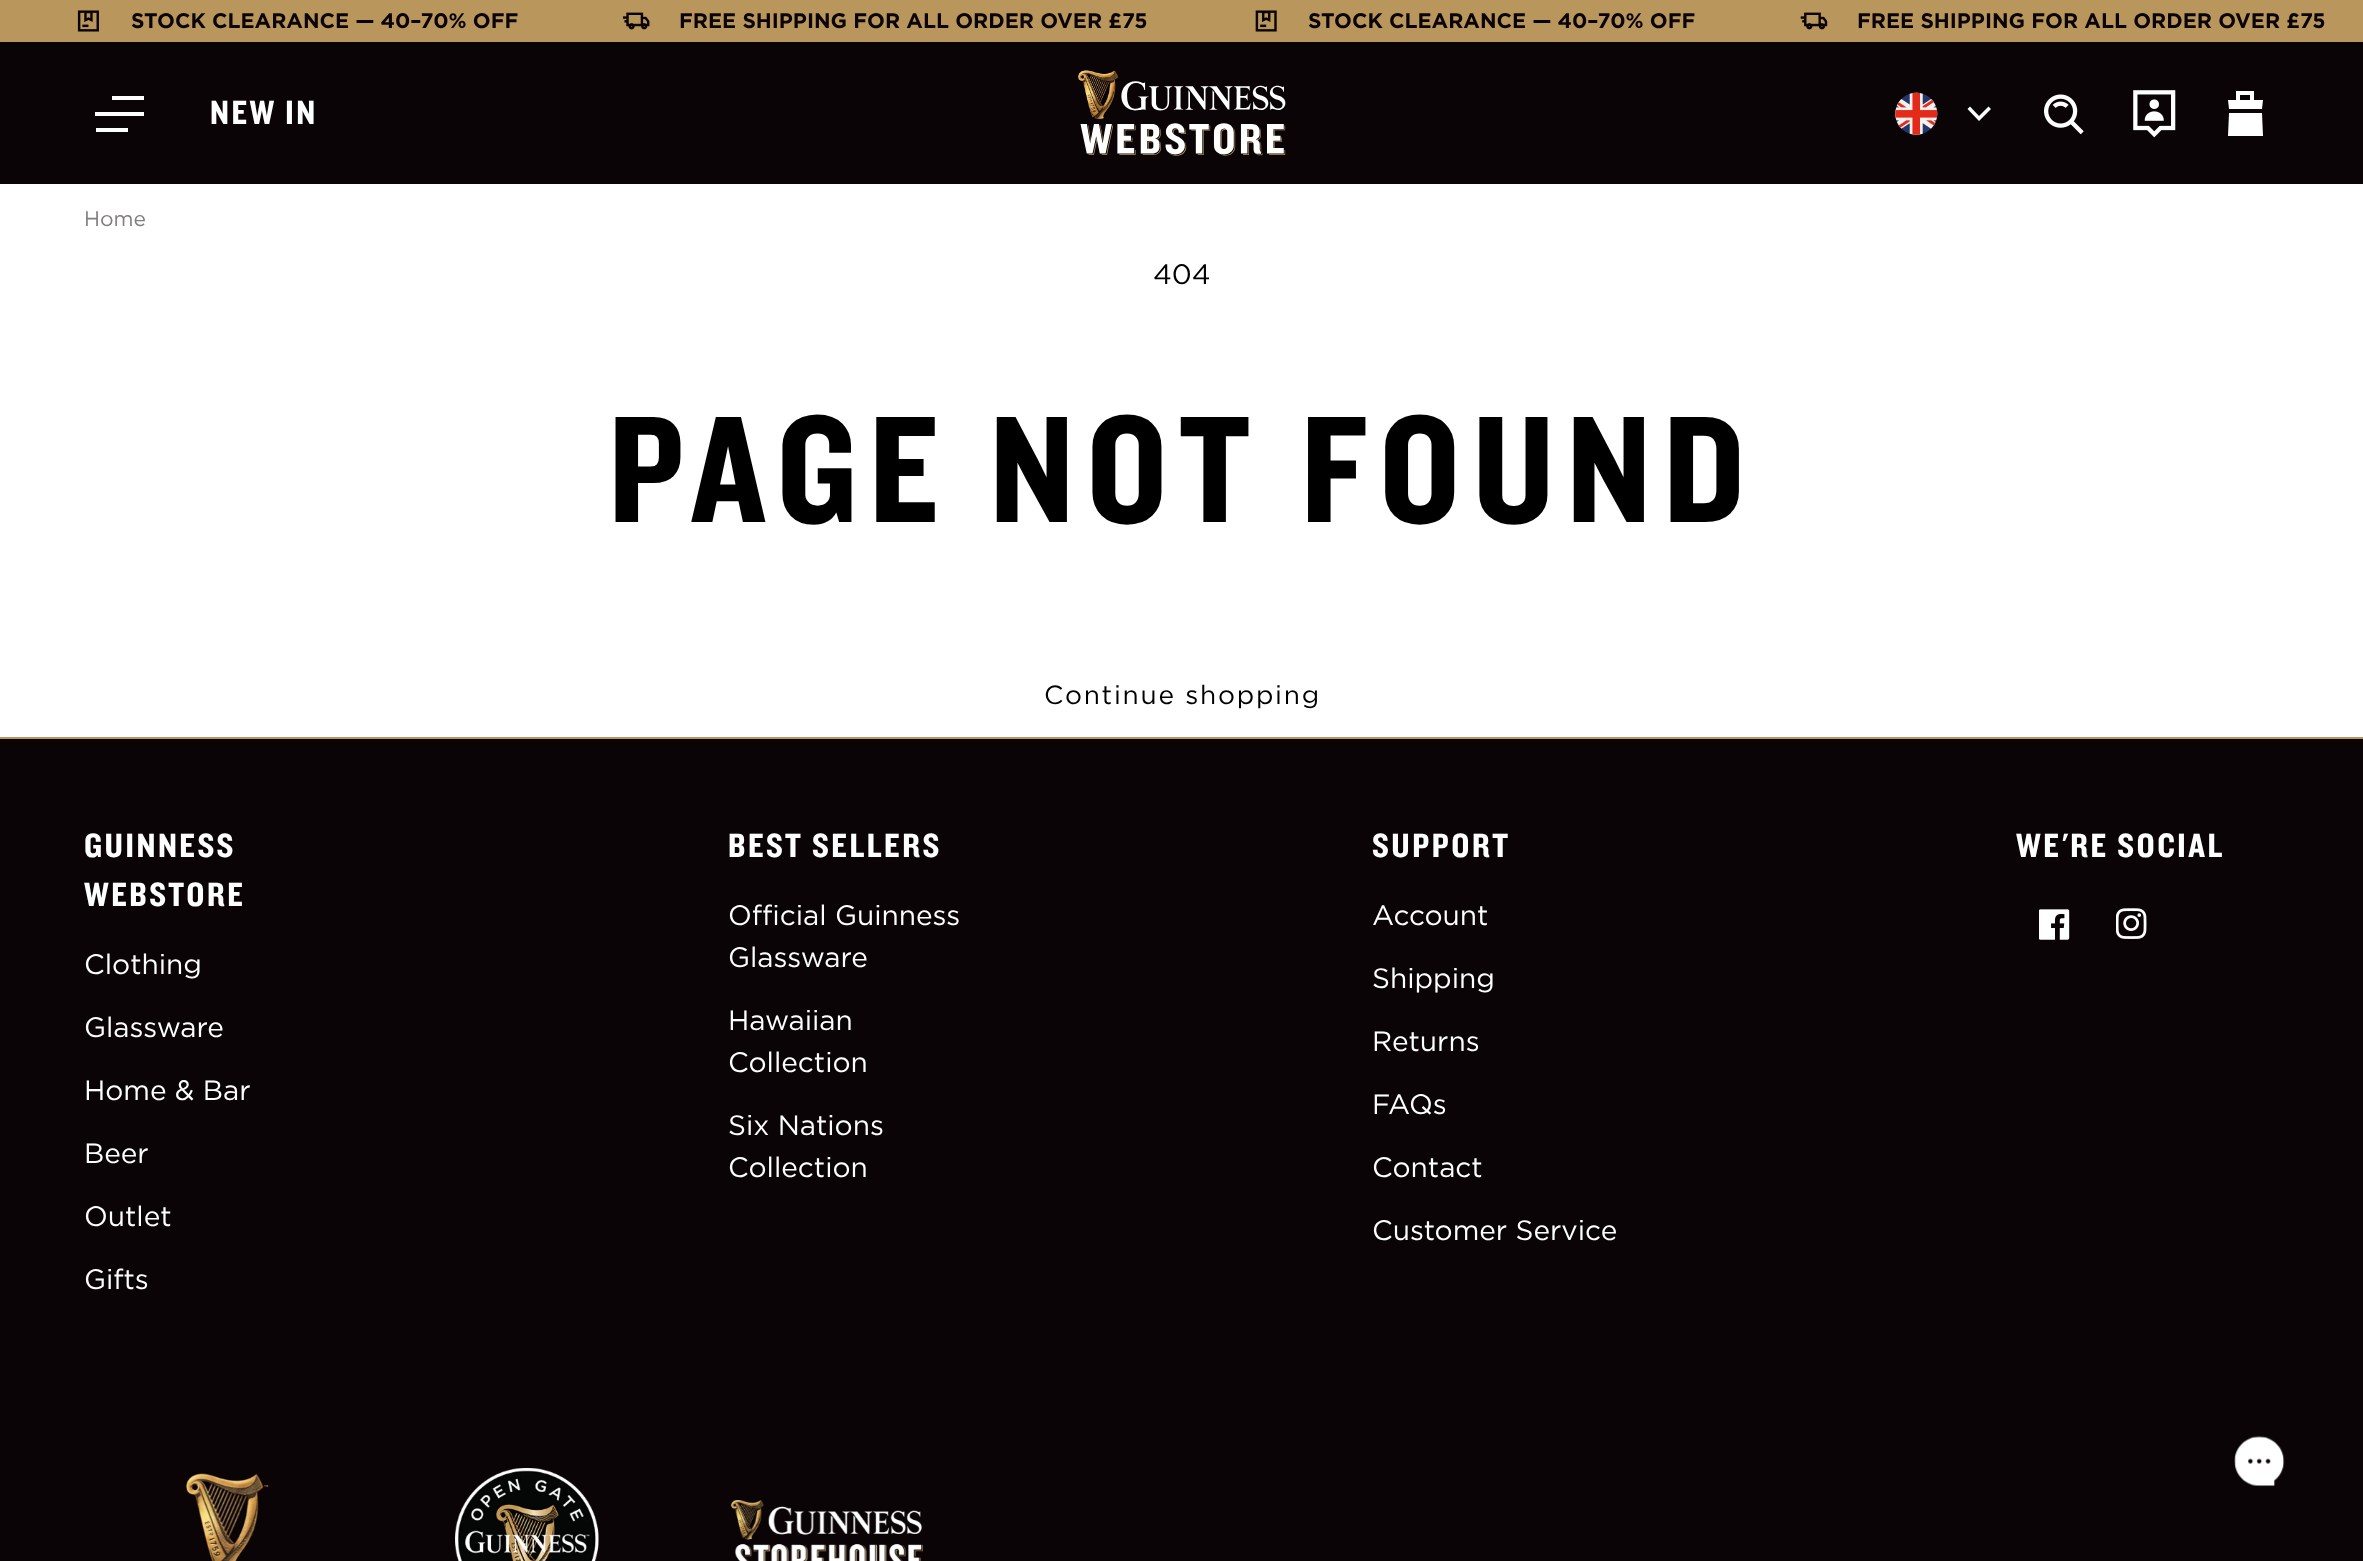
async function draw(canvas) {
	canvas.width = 2363;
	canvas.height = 1561;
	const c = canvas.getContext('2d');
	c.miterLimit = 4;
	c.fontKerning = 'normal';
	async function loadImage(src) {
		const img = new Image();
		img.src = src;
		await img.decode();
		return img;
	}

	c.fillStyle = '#fff';
	c.fillRect(0, 0, 2363, 1561);
	c.fillStyle = '#b9965b';
	c.fillRect(0, 0, 2363, 42);
	c.drawImage(await loadImage('img1.png'), 77, 10, 22, 22);
	c.font = 'bold 21px Gotham';
	c.fillStyle = '#0a0406';
	c.fillText('STOCK CLEARANCE — 40–70% OFF', 131, 28);
	c.drawImage(await loadImage('img2.png'), 623, 12, 27, 18);
	c.fillText('FREE SHIPPING FOR ALL ORDER OVER £75', 679, 28);
	c.drawImage(await loadImage('img3.png'), 1255, 10, 22, 22);
	c.fillText('STOCK CLEARANCE — 40–70% OFF', 1308, 28);
	c.drawImage(await loadImage('img4.png'), 1800, 12, 28, 18);
	c.fillText('FREE SHIPPING FOR ALL ORDER OVER £75', 1857, 28);
	for (const [x, y, w, h, color] of [
		[0, 42, 2363, 142, '#0a0406'],
		[112, 96, 32, 4, '#fff'],
		[95, 112, 49, 4, '#fff'],
		[96, 128, 32, 4, '#fff'],
	]) {
		c.fillStyle = color;
		c.fillRect(x, y, w, h);
	}
	c.letterSpacing = '2.5px';
	c.font = '500 35px "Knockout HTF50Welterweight"';
	c.fillText('NEW IN', 210, 124);
	c.drawImage(await loadImage('img5.png'), 1078, 70, 208, 86);
	c.drawImage(await loadImage('img6.png'), 1895, 92, 43, 43);
	c.beginPath();
	c.moveTo(1967.5, 109);
	c.lineTo(1970, 106.5);
	c.lineTo(1979, 116);
	c.lineTo(1988.5, 106.5);
	c.lineTo(1991, 109);
	c.lineTo(1979, 121);
	c.closePath();
	c.fill();
	c.drawImage(await loadImage('img7.png'), 2044, 94, 40, 41);
	c.drawImage(await loadImage('img8.png'), 2133, 90, 43, 48);
	c.beginPath();
	c.moveTo(2254, 91);
	c.lineTo(2254, 100);
	c.lineTo(2263, 100);
	c.lineTo(2262, 109);
	c.lineTo(2229, 109);
	c.lineTo(2228, 100);
	c.lineTo(2236, 100);
	c.lineTo(2236, 91);
	c.closePath();
	c.moveTo(2250, 95);
	c.lineTo(2240, 95);
	c.lineTo(2240, 100);
	c.lineTo(2250, 100);
	c.closePath();
	c.moveTo(2262, 113);
	c.lineTo(2263, 136);
	c.lineTo(2228, 136);
	c.lineTo(2229, 113);
	c.closePath();
	c.fill();
	c.letterSpacing = '0px';
	c.font = '21px Gotham';
	c.fillStyle = '#827e80';
	c.fillText('Home', 84, 226);
	c.font = '28px Gotham';
	c.fillStyle = '#000';
	c.fillText('404', 1153, 284);
	c.letterSpacing = '11.4px';
	c.font = '500 157.5px "Knockout HTF50Welterweight"';
	c.fillText('PAGE NOT FOUND', 608, 522);
	c.letterSpacing = '1.75px';
	c.font = '26.25px Gotham';
	c.fillText('Continue shopping', 1044, 704);
	c.fillStyle = '#0a0406';
	c.fillRect(0, 739, 2363, 822);
	c.fillStyle = '#b9965b';
	c.fillRect(0, 737, 2363, 2);
	c.letterSpacing = '2.5px';
	c.font = '500 35px "Knockout HTF50Welterweight"';
	c.fillStyle = '#fff';
	c.fillText('GUINNESS', 84, 857);
	c.fillText('WEBSTORE', 84, 906);
	c.letterSpacing = '0px';
	c.font = '28px Gotham';
	for (const [text, x, y] of [
		['Clothing', 84, 974],
		['Glassware', 84, 1037],
		['Home & Bar', 84, 1100],
		['Beer', 84, 1163],
		['Outlet', 84, 1226],
		['Gifts', 84, 1289],
	]) {
		c.fillText(text, x, y);
	}
	c.letterSpacing = '2.5px';
	c.font = '500 35px "Knockout HTF50Welterweight"';
	c.fillText('BEST SELLERS', 728, 857);
	c.letterSpacing = '0px';
	c.font = '28px Gotham';
	for (const [text, x, y] of [
		['Official Guinness', 728, 925],
		['Glassware', 728, 967],
		['Hawaiian', 728, 1030],
		['Collection', 728, 1072],
		['Six Nations', 728, 1135],
		['Collection', 728, 1177],
	]) {
		c.fillText(text, x, y);
	}
	c.letterSpacing = '2.5px';
	c.font = '500 35px "Knockout HTF50Welterweight"';
	c.fillText('SUPPORT', 1372, 857);
	c.letterSpacing = '0px';
	c.font = '28px Gotham';
	for (const [text, x, y] of [
		['Account', 1372, 925],
		['Shipping', 1372, 988],
		['Returns', 1372, 1051],
		['FAQs', 1372, 1114],
		['Contact', 1372, 1177],
		['Customer Service', 1372, 1240],
	]) {
		c.fillText(text, x, y);
	}
	c.letterSpacing = '2.5px';
	c.font = '500 35px "Knockout HTF50Welterweight"';
	c.fillText('WE\'RE SOCIAL', 2016, 857);
	c.drawImage(await loadImage('img9.png'), 2039, 909, 31, 31);
	c.drawImage(await loadImage('img10.png'), 2116, 908, 31, 31);
	c.drawImage(await loadImage('img11.png'), 185, 1473, 84, 88);
	c.drawImage(await loadImage('img12.png'), 455, 1468, 144, 93);
	c.drawImage(await loadImage('img13.png'), 730, 1500, 194, 61);
	c.drawImage(await loadImage('img14.png'), 2234, 1436, 51, 51);
}

draw(document.querySelector('canvas'));
